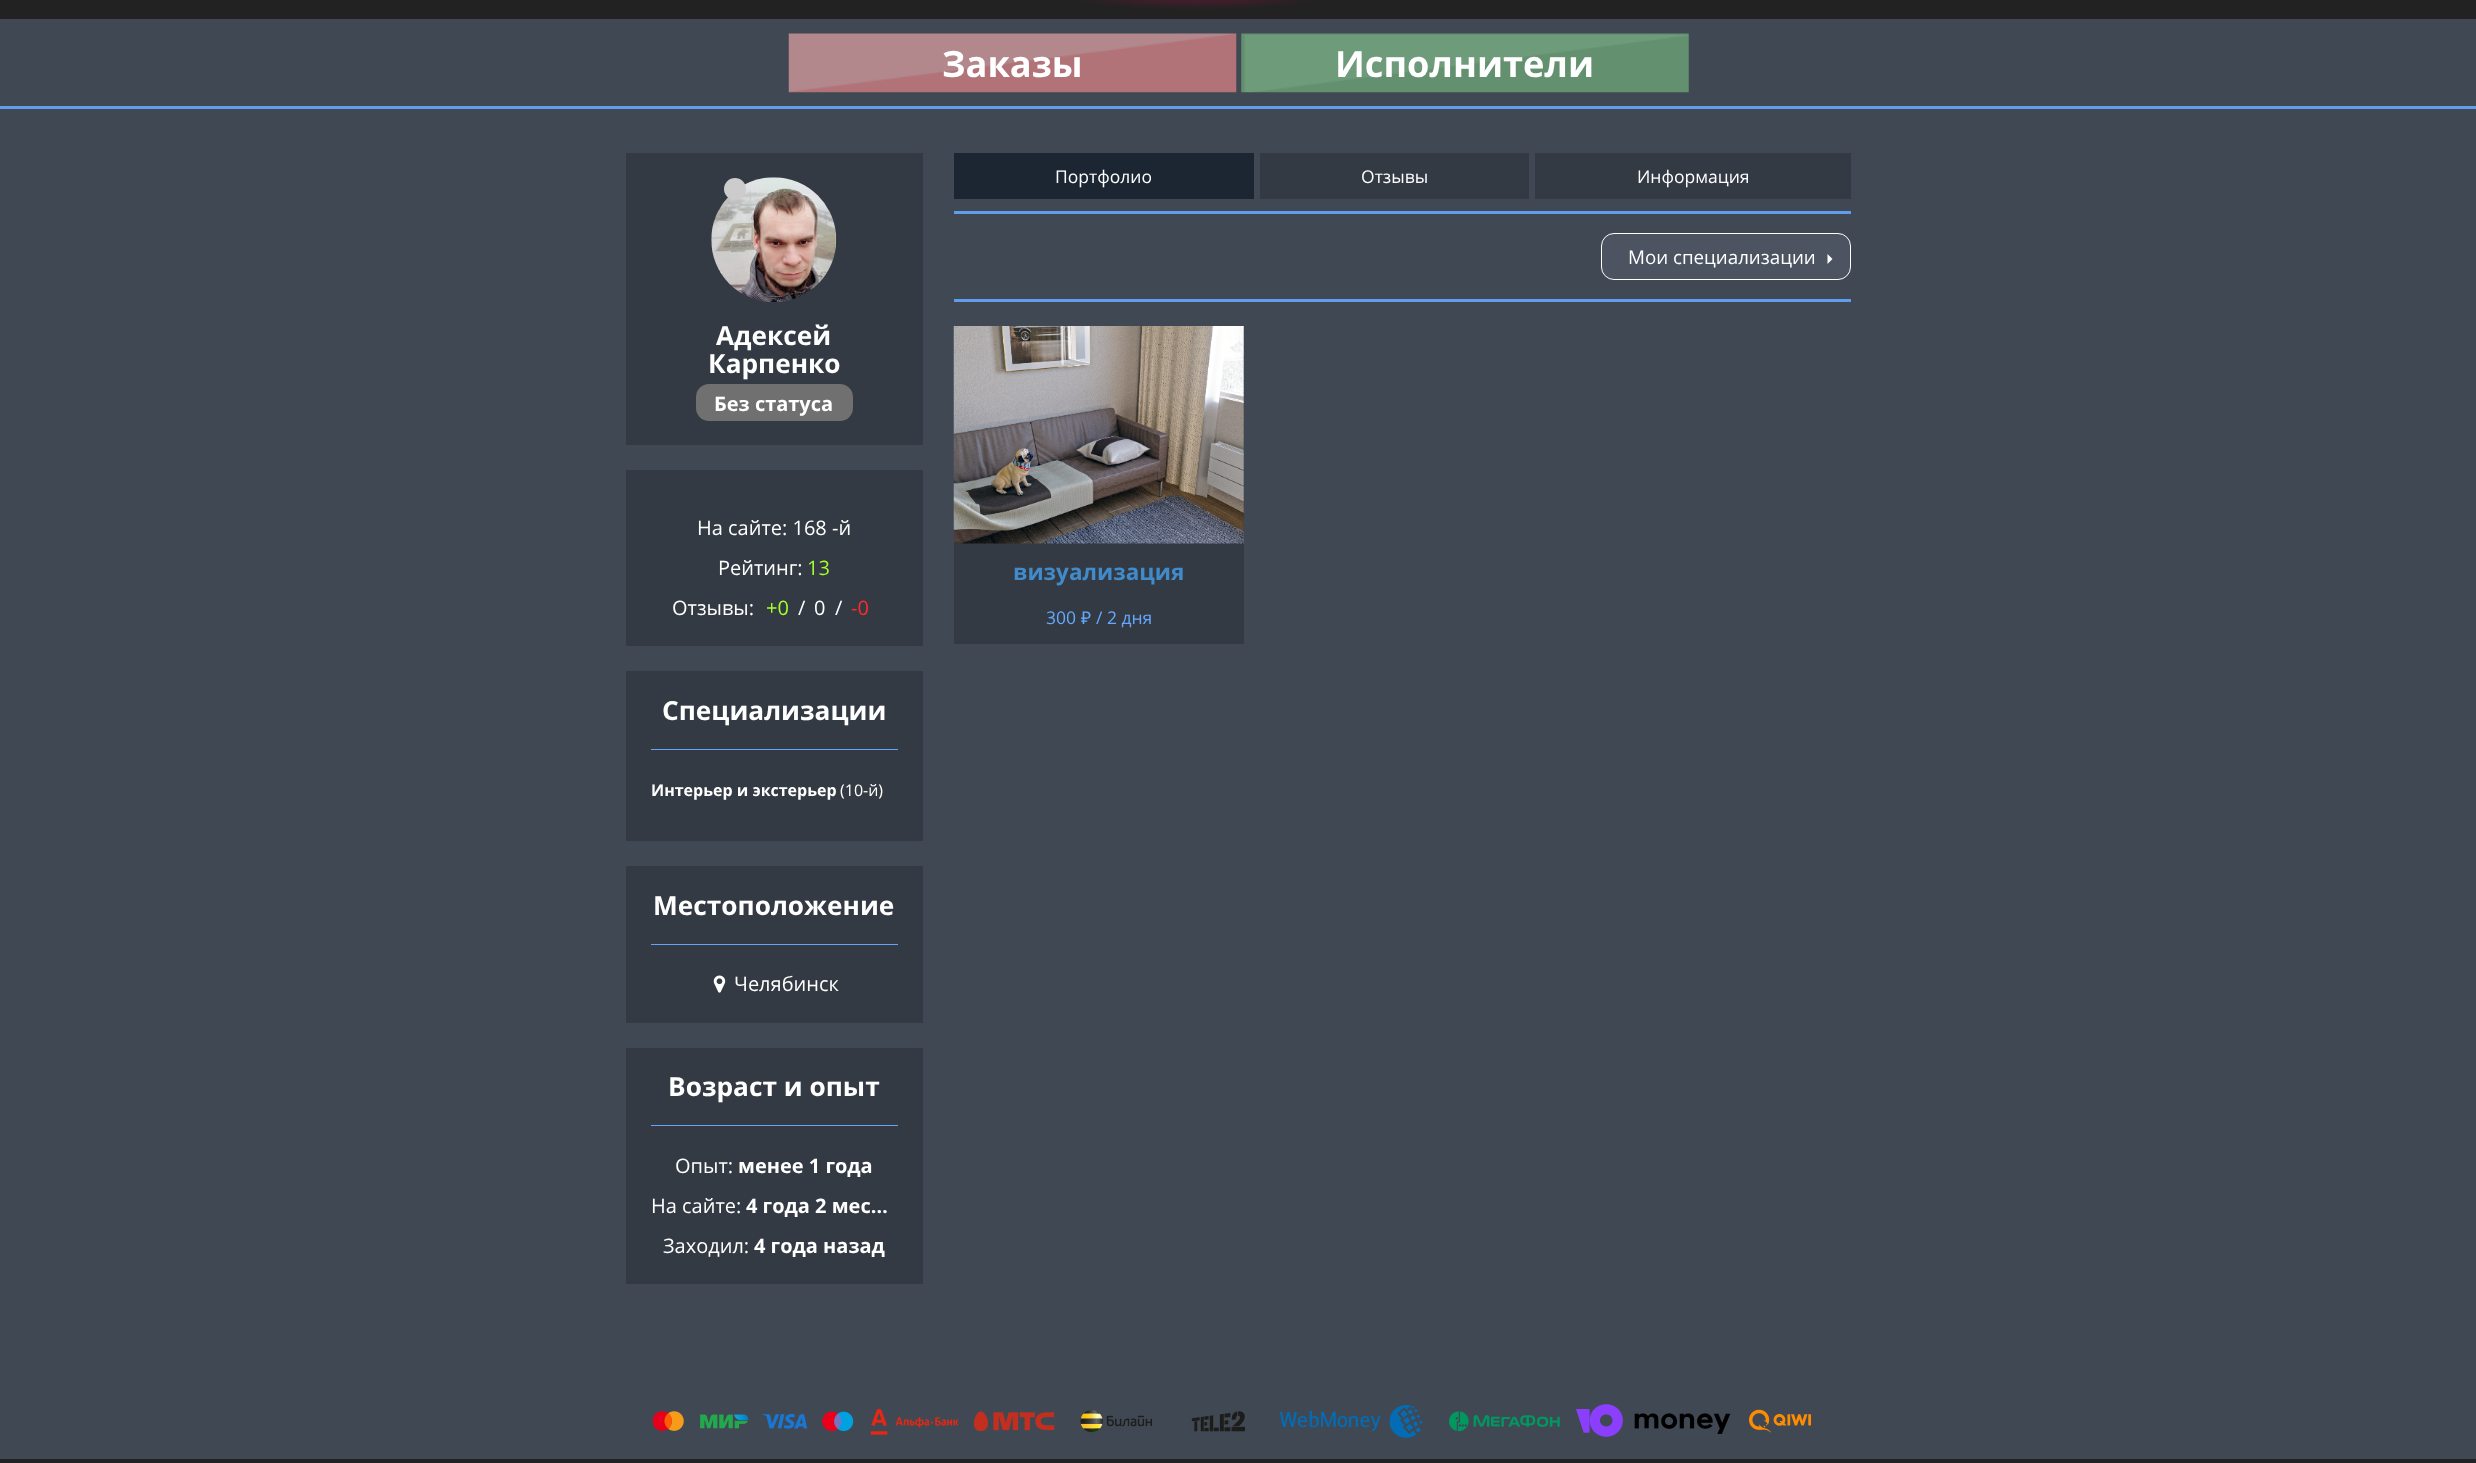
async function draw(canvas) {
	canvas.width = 2476;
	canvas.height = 1463;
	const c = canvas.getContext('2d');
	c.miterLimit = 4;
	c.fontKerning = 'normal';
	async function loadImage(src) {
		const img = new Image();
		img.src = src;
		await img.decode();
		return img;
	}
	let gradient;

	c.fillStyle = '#404854';
	c.fillRect(0, 0, 2476, 1463);
	c.fillStyle = '#222';
	c.fillRect(0, 0, 2476, 19);
	gradient = c.createRadialGradient(1196, -81.27, 0, 1196, -81.27, 149);
	gradient.addColorStop(0, '#6b1839');
	gradient.addColorStop(1, '#222');
	c.fillStyle = gradient;
	c.beginPath();
	c.rect(1080, 0, 232, 9);
	c.save();
	c.clip();
	c.scale(1, 22 / 149);
	c.fillRect(0, 0, 2476, 9909);
	c.restore();
	c.fillStyle = '#609eeb';
	c.fillRect(0, 106, 2476, 3);
	c.drawImage(await loadImage('img1.png'), 788, 33, 449, 60);
	c.font = 'bold 36.25px Open Sans';
	c.fillStyle = '#fff';
	c.fillText('Заказы', 942, 77);
	c.drawImage(await loadImage('img2.png'), 1241, 33, 448, 60);
	c.fillText('Исполнители', 1335, 77);
	c.fillStyle = '#333a43';
	c.fillRect(626, 153, 297, 292);
	c.drawImage(await loadImage('img3.png'), 711, 177, 126, 125);
	c.fillStyle = '#ccc';
	c.beginPath();
	c.arc(735, 189, 11, 0, 2 * Math.PI);
	c.fill();
	c.font = 'bold 26.25px Open Sans';
	c.fillStyle = '#fff';
	c.fillText('Адексей', 716, 345);
	c.fillText('Карпенко', 708, 373);
	c.fillStyle = '#707070';
	c.beginPath();
	c.roundRect(696, 384, 157, 37, 13);
	c.fill();
	c.font = 'bold 20px Open Sans';
	c.fillStyle = '#fff';
	c.fillText('Без статуса', 714, 411);
	c.fillStyle = '#333a43';
	c.fillRect(626, 470, 297, 176);
	c.font = '20px Open Sans';
	c.fillStyle = '#fff';
	c.fillText('На сайте: 168 -й', 697, 535);
	c.fillText('Рейтинг:', 718, 575);
	c.fillStyle = '#a4ff2b';
	c.fillText('13', 807, 575);
	c.fillStyle = '#fff';
	c.fillText('Отзывы:', 672, 615);
	c.fillStyle = '#a4ff2b';
	c.fillText('+0', 766, 615);
	c.fillStyle = '#fff';
	for (const [text, x, y] of [
		['/', 798, 615],
		['0', 814, 615],
		['/', 835, 615],
	]) {
		c.fillText(text, x, y);
	}
	c.fillStyle = '#ff2b2b';
	c.fillText('-0', 851, 615);
	c.fillStyle = '#333a43';
	c.fillRect(626, 671, 297, 170);
	c.fillStyle = '#62a6f9';
	c.fillRect(651, 749, 247, 1);
	c.font = 'bold 26.25px Open Sans';
	c.fillStyle = '#fff';
	c.fillText('Специализации', 662, 720);
	c.font = 'bold 16px Open Sans';
	c.fillText('Интерьер и экстерьер', 651, 796);
	c.font = '16px Open Sans';
	c.fillText('(10-й)', 840, 796);
	c.fillStyle = '#333a43';
	c.fillRect(626, 866, 297, 157);
	c.fillStyle = '#62a6f9';
	c.fillRect(651, 944, 247, 1);
	c.font = 'bold 26.25px Open Sans';
	c.fillStyle = '#fff';
	c.fillText('Местоположение', 653, 915);
	c.drawImage(await loadImage('img4.png'), 713, 975, 13, 18);
	c.font = '20px Open Sans';
	c.fillText('Челябинск', 734, 991);
	c.fillStyle = '#333a43';
	c.fillRect(626, 1048, 297, 236);
	c.fillStyle = '#62a6f9';
	c.fillRect(651, 1125, 247, 1);
	c.font = 'bold 26.25px Open Sans';
	c.fillStyle = '#fff';
	c.fillText('Возраст и опыт', 668, 1096);
	c.font = '20px Open Sans';
	c.fillText('Опыт:', 675, 1173);
	c.font = 'bold 20px Open Sans';
	c.fillText('менее 1 года', 738, 1173);
	c.font = '20px Open Sans';
	c.fillText('На сайте:', 651, 1213);
	c.font = 'bold 20px Open Sans';
	c.fillText('4 года 2 мес…', 746, 1213);
	c.font = '20px Open Sans';
	c.fillText('Заходил:', 663, 1253);
	c.font = 'bold 20px Open Sans';
	c.fillText('4 года назад', 754, 1253);
	c.fillStyle = '#609eeb';
	c.fillRect(954, 211, 897, 3);
	c.fillStyle = '#1c2633';
	c.fillRect(954, 153, 300, 46);
	c.font = '17.5px Open Sans';
	c.fillStyle = '#fff';
	c.fillText('Портфолио', 1055, 183);
	c.fillStyle = '#333a44';
	c.fillRect(1260, 153, 269, 46);
	c.fillStyle = '#fff';
	c.fillText('Отзывы', 1361, 183);
	c.fillStyle = '#333a44';
	c.fillRect(1535, 153, 316, 46);
	c.fillStyle = '#fff';
	c.fillText('Информация', 1637, 183);
	c.fillStyle = '#609eeb';
	c.fillRect(954, 299, 897, 3);
	c.fillStyle = '#4b5460';
	c.beginPath();
	c.roundRect(1601.5, 233.5, 249, 46, 12.5);
	c.fill();
	c.strokeStyle = '#fff';
	c.stroke();
	c.font = '18.75px Open Sans';
	c.fillStyle = '#fff';
	c.fillText('Мои специализации', 1628, 264);
	c.beginPath();
	c.moveTo(1827.5, 264);
	c.lineTo(1827.5, 254);
	c.lineTo(1832.5, 259);
	c.closePath();
	c.fill();
	c.fillStyle = '#333a43';
	c.beginPath();
	c.roundRect(954, 326, 290, 318, [6, 6, 0, 0]);
	c.fill();
	c.drawImage(await loadImage('img5.png'), 953, 326, 291, 218);
	c.font = 'bold 22.5px Open Sans';
	c.fillStyle = '#428bca';
	c.fillText('визуализация', 1013, 580);
	c.font = '17.5px Open Sans';
	c.fillStyle = '#64a9ff';
	c.fillText('300', 1046, 624);
	c.font = '17.5px Noto Sans';
	c.fillText('₽', 1081, 624);
	c.font = '17.5px Open Sans';
	c.fillText('/ 2 дня', 1096, 624);
	c.drawImage(await loadImage('img6.png'), 653, 1411, 201, 20);
	c.drawImage(await loadImage('img7.png'), 870, 1408, 89, 27);
	c.drawImage(await loadImage('img8.png'), 974, 1411, 81, 20);
	c.drawImage(await loadImage('img9.png'), 1080, 1410, 72, 23);
	c.drawImage(await loadImage('img10.png'), 1191, 1411, 54, 21);
	c.drawImage(await loadImage('img11.png'), 1280, 1405, 143, 33);
	c.drawImage(await loadImage('img12.png'), 1449, 1411, 111, 21);
	c.drawImage(await loadImage('img13.png'), 1576, 1404, 155, 33);
	c.drawImage(await loadImage('img14.png'), 1749, 1409, 62, 24);
	c.fillStyle = '#222';
	c.fillRect(0, 1459, 2476, 4);
}

draw(document.querySelector('canvas'));
